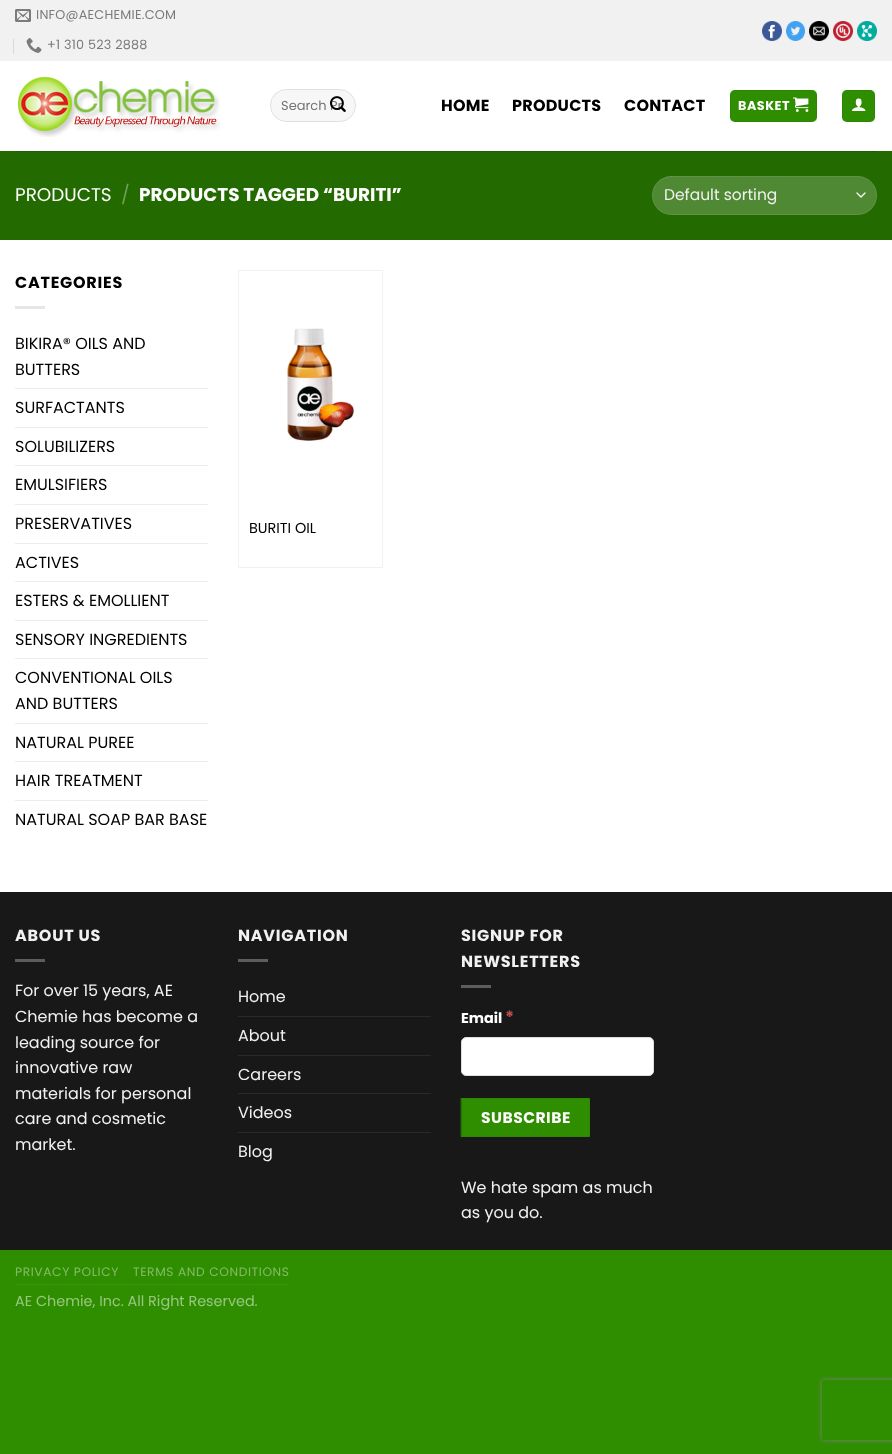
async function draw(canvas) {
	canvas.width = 892;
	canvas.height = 1454;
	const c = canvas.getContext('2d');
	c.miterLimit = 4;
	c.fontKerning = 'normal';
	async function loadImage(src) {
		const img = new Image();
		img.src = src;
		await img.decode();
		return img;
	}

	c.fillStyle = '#2f8e00';
	c.fillRect(0, 0, 892, 1454);
	c.fillStyle = '#fff';
	c.fillRect(0, 61, 892, 831);
	c.fillStyle = '#f1f1f1';
	c.fillRect(0, 0, 892, 61);
	c.drawImage(await loadImage('img1.png'), 15, 9, 16, 13);
	c.letterSpacing = '0.25px';
	c.font = '12.75px Poppins';
	c.fillStyle = '#7b7b7b';
	c.fillText('INFO@AECHEMIE.COM', 36, 19);
	c.fillStyle = '#d9d9d9';
	c.fillRect(13, 39, 1, 15);
	c.drawImage(await loadImage('img2.png'), 26, 38, 16, 15);
	c.fillStyle = '#7b7b7b';
	c.fillText('+1 310 523 2888', 47, 49);
	c.drawImage(await loadImage('img3.png'), 762, 21, 20, 20);
	c.drawImage(await loadImage('img4.png'), 786, 21, 19, 20);
	c.drawImage(await loadImage('img5.png'), 809, 21, 20, 20);
	c.drawImage(await loadImage('img6.png'), 833, 21, 20, 20);
	c.drawImage(await loadImage('img7.png'), 857, 21, 20, 20);
	c.drawImage(await loadImage('img8.png'), 18, 77, 202, 60);
	c.fillStyle = '#f7f7f7';
	c.beginPath();
	c.roundRect(270, 89, 86, 33, 16.5);
	c.fill();
	c.beginPath();
	c.roundRect(270.5, 89.5, 85, 32, 16);
	c.strokeStyle = '#00000017';
	c.stroke();
	c.letterSpacing = '0px';
	c.font = '13px Poppins';
	c.fillStyle = '#757575';
	c.fillText('Search Pr', 281, 110);
	c.drawImage(await loadImage('img9.png'), 330, 96, 16, 16);
	c.letterSpacing = '0.25px';
	c.font = 'bold 16px Poppins';
	c.fillStyle = '#000';
	for (const [text, x, y] of [
		['HOME', 441, 111],
		['PRODUCTS', 512, 111],
		['CONTACT', 624, 111],
	]) {
		c.fillText(text, x, y);
	}
	c.fillStyle = '#2f8e00';
	c.beginPath();
	c.roundRect(730, 90, 87, 32, 5);
	c.fill();
	c.strokeStyle = '#0000000d';
	c.strokeRect(730.5, 90.5, 86, 31);
	c.letterSpacing = '0.5px';
	c.font = 'bold 12.75px Poppins';
	c.fillStyle = '#fff';
	c.fillText('BASKET', 738, 110);
	c.drawImage(await loadImage('img10.png'), 793, 97, 16, 15);
	c.fillStyle = '#2f8e00';
	c.beginPath();
	c.roundRect(842, 90, 33, 32, 5);
	c.fill();
	c.strokeRect(842.5, 90.5, 32, 31);
	c.drawImage(await loadImage('img11.png'), 852, 98, 14, 13);
	c.fillStyle = '#236b00';
	c.fillRect(0, 151, 892, 89);
	c.fillStyle = '#206000';
	c.fillRect(15, 151, 862, 1);
	c.letterSpacing = '0px';
	c.font = '18.4px Poppins';
	c.fillStyle = '#fff';
	c.fillText('PRODUCTS', 15, 201);
	c.fillStyle = '#709f59';
	c.fillText('/', 121, 201);
	c.font = 'bold 18.4px Poppins';
	c.fillStyle = '#fff';
	c.fillText('PRODUCTS TAGGED “BURITI”', 139, 201);
	c.fillStyle = '#4f8933';
	c.beginPath();
	c.roundRect(652, 176, 225, 39, 19.5);
	c.fill();
	c.beginPath();
	c.moveTo(857, 193);
	c.lineTo(861, 197);
	c.lineTo(865, 193);
	c.strokeStyle = '#fff';
	c.lineWidth = 1.3;
	c.lineCap = 'round';
	c.lineJoin = 'round';
	c.stroke();
	c.beginPath();
	c.roundRect(652.5, 176.5, 224, 38, 19);
	c.strokeStyle = '#ffffff17';
	c.lineWidth = 1;
	c.lineJoin = 'miter';
	c.stroke();
	c.font = '15.5px Poppins';
	c.fillStyle = '#f1f1f1';
	c.fillText('Default sorting', 664, 200);
	c.letterSpacing = '0.75px';
	c.font = 'bold 16px Poppins';
	c.fillStyle = '#000';
	c.fillText('CATEGORIES', 15, 288);
	c.fillStyle = '#e6e6e6';
	c.fillRect(15, 306, 30, 3);
	c.letterSpacing = '0px';
	c.font = '16px Poppins';
	c.fillStyle = '#000';
	c.fillText('BIKIRA® OILS AND', 15, 349);
	c.fillText('BUTTERS', 15, 375);
	c.fillStyle = '#ececec';
	c.fillRect(15, 388, 193, 1);
	c.fillStyle = '#000';
	c.fillText('SURFACTANTS', 15, 413);
	c.fillStyle = '#ececec';
	c.fillRect(15, 427, 193, 1);
	c.fillStyle = '#000';
	c.fillText('SOLUBILIZERS', 15, 452);
	c.fillStyle = '#ececec';
	c.fillRect(15, 465, 193, 1);
	c.fillStyle = '#000';
	c.fillText('EMULSIFIERS', 15, 490);
	c.fillStyle = '#ececec';
	c.fillRect(15, 504, 193, 1);
	c.fillStyle = '#000';
	c.fillText('PRESERVATIVES', 15, 529);
	c.fillStyle = '#ececec';
	c.fillRect(15, 543, 193, 1);
	c.fillStyle = '#000';
	c.fillText('ACTIVES', 15, 568);
	c.fillStyle = '#ececec';
	c.fillRect(15, 581, 193, 1);
	c.fillStyle = '#000';
	c.fillText('ESTERS & EMOLLIENT', 15, 606);
	c.fillStyle = '#ececec';
	c.fillRect(15, 620, 193, 1);
	c.fillStyle = '#000';
	c.fillText('SENSORY INGREDIENTS', 15, 645);
	c.fillStyle = '#ececec';
	c.fillRect(15, 658, 193, 1);
	c.fillStyle = '#000';
	c.fillText('CONVENTIONAL OILS', 15, 683);
	c.fillText('AND BUTTERS', 15, 709);
	c.fillStyle = '#ececec';
	c.fillRect(15, 723, 193, 1);
	c.fillStyle = '#000';
	c.fillText('NATURAL PUREE', 15, 748);
	c.fillStyle = '#ececec';
	c.fillRect(15, 761, 193, 1);
	c.fillStyle = '#000';
	c.fillText('HAIR TREATMENT', 15, 786);
	c.fillStyle = '#ececec';
	c.fillRect(15, 800, 193, 1);
	c.fillStyle = '#000';
	c.fillText('NATURAL SOAP BAR BASE', 15, 825);
	c.strokeStyle = '#f1f1f1';
	c.strokeRect(238.5, 270.5, 144, 297);
	c.drawImage(await loadImage('img12.png'), 287, 328, 67, 113);
	c.font = '14.4px Poppins';
	c.fillText('BURITI OIL', 249, 533);
	c.fillStyle = '#181818';
	c.fillRect(0, 892, 892, 358);
	c.letterSpacing = '0.75px';
	c.font = 'bold 16px Poppins';
	c.fillStyle = '#f1f1f1';
	c.fillText('ABOUT US', 15, 941);
	c.fillStyle = '#5d5d5d';
	c.fillRect(15, 959, 30, 3);
	c.letterSpacing = '0px';
	c.font = '16px Poppins';
	c.fillStyle = '#f1f1f1';
	for (const [text, x, y] of [
		['For over 15 years, AE', 15, 996],
		['Chemie has become a', 15, 1022],
		['leading source for', 15, 1048],
		['innovative raw', 15, 1073],
		['materials for personal', 15, 1099],
		['care and cosmetic', 15, 1124],
		['market.', 15, 1150],
	]) {
		c.fillText(text, x, y);
	}
	c.letterSpacing = '0.75px';
	c.font = 'bold 16px Poppins';
	c.fillText('NAVIGATION', 238, 941);
	c.fillStyle = '#5d5d5d';
	c.fillRect(238, 959, 30, 3);
	c.letterSpacing = '0px';
	c.font = '16px Poppins';
	c.fillStyle = '#f1f1f1';
	c.fillText('Home', 238, 1002);
	c.fillStyle = '#2a2a2a';
	c.fillRect(238, 1016, 193, 1);
	c.fillStyle = '#f1f1f1';
	c.fillText('About', 238, 1041);
	c.fillStyle = '#2a2a2a';
	c.fillRect(238, 1055, 193, 1);
	c.fillStyle = '#f1f1f1';
	c.fillText('Careers', 238, 1080);
	c.fillStyle = '#2a2a2a';
	c.fillRect(238, 1093, 193, 1);
	c.fillStyle = '#f1f1f1';
	c.fillText('Videos', 238, 1118);
	c.fillStyle = '#2a2a2a';
	c.fillRect(238, 1132, 193, 1);
	c.fillStyle = '#f1f1f1';
	c.fillText('Blog', 238, 1157);
	c.letterSpacing = '0.75px';
	c.font = 'bold 16px Poppins';
	c.fillText('SIGNUP FOR', 461, 941);
	c.fillText('NEWSLETTERS', 461, 967);
	c.fillStyle = '#5d5d5d';
	c.fillRect(461, 985, 30, 3);
	c.letterSpacing = '0px';
	c.font = 'bold 14.4px Poppins';
	c.fillStyle = '#fff';
	c.fillText('Email', 461, 1023);
	c.font = 'bold 17px Poppins';
	c.fillStyle = '#bf4d4d';
	c.fillText('*', 505, 1023);
	c.fillStyle = '#fff';
	c.beginPath();
	c.roundRect(461.5, 1037.5, 192, 38, 4.5);
	c.fill();
	c.strokeStyle = '#ddd';
	c.stroke();
	c.fillStyle = '#2f8e00';
	c.beginPath();
	c.rect(461.5, 1098.5, 128, 38);
	c.fill();
	c.strokeStyle = '#2d8700';
	c.stroke();
	c.letterSpacing = '0.5px';
	c.font = 'bold 15.5px Poppins';
	c.fillStyle = '#fff';
	c.fillText('SUBSCRIBE', 481, 1123);
	c.letterSpacing = '0px';
	c.font = '16px Poppins';
	c.fillStyle = '#f1f1f1';
	c.fillText('We hate spam as much', 461, 1193);
	c.fillText('as you do.', 461, 1218);
	c.fillStyle = '#3c9510';
	c.fillRect(15, 1284, 274, 1);
	c.letterSpacing = '0.6px';
	c.font = '12.25px Poppins';
	c.fillStyle = '#82bb66';
	c.fillText('PRIVACY POLICY', 15, 1276);
	c.fillText('TERMS AND CONDITIONS', 133, 1276);
	c.letterSpacing = '0px';
	c.font = '14.4px Poppins';
	c.fillStyle = '#97c780';
	c.fillText('AE Chemie, Inc. All Right Reserved.', 15, 1306);
	c.save();
	c.beginPath();
	c.moveTo(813, 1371);
	c.lineTo(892, 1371);
	c.lineTo(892, 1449);
	c.lineTo(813, 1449);
	c.closePath();
	c.moveTo(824, 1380);
	c.lineTo(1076, 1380);
	c.bezierCurveTo(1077, 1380, 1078, 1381, 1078, 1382);
	c.lineTo(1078, 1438);
	c.bezierCurveTo(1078, 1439, 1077, 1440, 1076, 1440);
	c.lineTo(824, 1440);
	c.bezierCurveTo(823, 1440, 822, 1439, 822, 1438);
	c.lineTo(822, 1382);
	c.bezierCurveTo(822, 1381, 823, 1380, 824, 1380);
	c.closePath();
	c.clip('evenodd');
	c.fillStyle = '#808080';
	c.filter = 'blur(2.5px)';
	c.beginPath();
	c.roundRect(822, 1380, 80, 60, 2);
	c.fill();
	c.filter = 'none';
	c.restore();
}

draw(document.querySelector('canvas'));
